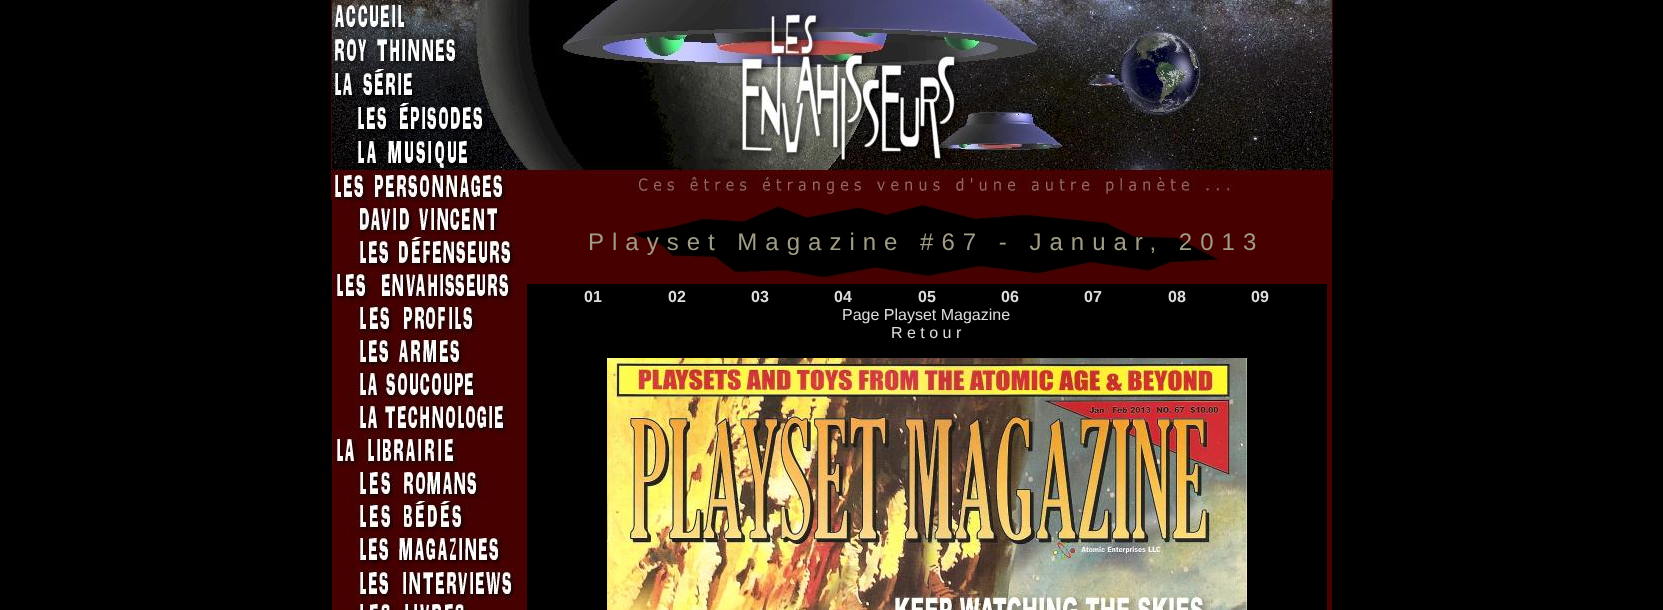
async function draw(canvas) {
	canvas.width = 1663;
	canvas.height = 610;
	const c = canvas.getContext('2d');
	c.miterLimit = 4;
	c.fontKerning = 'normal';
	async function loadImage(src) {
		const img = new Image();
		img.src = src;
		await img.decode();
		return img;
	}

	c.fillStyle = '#000';
	c.fillRect(0, 0, 1663, 610);
	c.drawImage(await loadImage('img1.png'), 331, 0, 1002, 200);
	c.fillStyle = '#460000';
	c.fillRect(515, 200, 817, 410);
	c.drawImage(await loadImage('img2.png'), 332, 200, 183, 410);
	c.drawImage(await loadImage('img3.png'), 631, 204, 588, 75);
	c.letterSpacing = '8px';
	c.font = '24px Liberation Sans';
	c.fillStyle = '#a19c86';
	c.fillText('Playset Magazine #67 - Januar, 2013', 588, 250);
	c.fillStyle = '#000';
	c.fillRect(527, 284, 800, 326);
	c.letterSpacing = '0px';
	c.font = 'bold 16px Liberation Sans';
	c.fillStyle = '#ddd';
	for (const [text, x, y] of [
		['01', 584, 302],
		['02', 668, 302],
		['03', 751, 302],
		['04', 834, 302],
		['05', 918, 302],
		['06', 1001, 302],
		['07', 1084, 302],
		['08', 1168, 302],
		['09', 1251, 302],
	]) {
		c.fillText(text, x, y);
	}
	c.font = '16px Liberation Sans';
	c.fillText('Page Playset Magazine', 842, 320);
	c.fillText('R e t o u r', 891, 338);
	c.drawImage(await loadImage('img4.png'), 607, 358, 640, 252);
}

draw(document.querySelector('canvas'));
